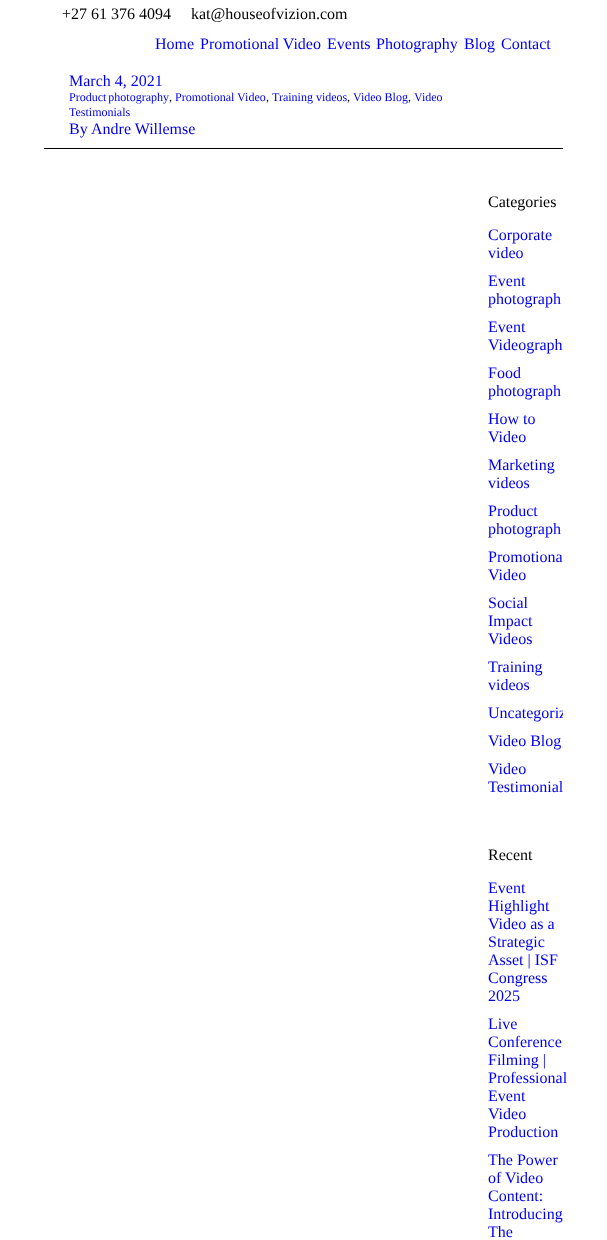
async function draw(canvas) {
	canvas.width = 607;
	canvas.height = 1240;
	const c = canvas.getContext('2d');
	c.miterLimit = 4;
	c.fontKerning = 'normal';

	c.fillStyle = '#fff';
	c.fillRect(0, 0, 607, 1240);
	c.font = '16px Liberation Serif';
	c.fillStyle = '#000';
	c.fillText('+27 61 376 4094', 62, 19);
	c.fillText('kat@houseofvizion.com', 191, 19);
	c.fillStyle = '#00e';
	for (const [text, x, y] of [
		['Home', 155, 49],
		['Promotional Video', 200, 49],
		['Events', 327, 49],
		['Photography', 376, 49],
		['Blog', 464, 49],
		['Contact', 501, 49],
	]) {
		c.fillText(text, x, y);
	}
	c.fillStyle = '#000';
	c.fillRect(44, 148, 519, 1);
	c.fillStyle = '#00e';
	c.fillText('March 4, 2021', 69, 86);
	c.wordSpacing = '-1px';
	c.font = '12px Liberation Serif';
	c.fillText('Product photography', 69, 101);
	c.wordSpacing = '0px';
	c.fillStyle = '#000';
	c.fillText(',', 169, 101);
	c.fillStyle = '#00e';
	c.fillText('Promotional Video', 175, 101);
	c.fillStyle = '#000';
	c.fillText(',', 266, 101);
	c.fillStyle = '#00e';
	c.fillText('Training videos', 272, 101);
	c.fillStyle = '#000';
	c.fillText(',', 347, 101);
	c.fillStyle = '#00e';
	c.fillText('Video Blog', 353, 101);
	c.fillStyle = '#000';
	c.fillText(',', 408, 101);
	c.fillStyle = '#00e';
	c.fillText('Video', 414, 101);
	c.fillText('Testimonials', 69, 116);
	c.font = '16px Liberation Serif';
	c.fillText('By', 69, 134);
	c.fillText('Andre Willemse', 91, 134);
	c.fillStyle = '#000';
	c.fillText('Categories', 488, 207);
	c.fillStyle = '#00e';
	for (const [text, x, y] of [
		['Corporate', 488, 240],
		['video', 488, 258],
		['Event', 488, 286],
		['photograph', 488, 304],
		['Event', 488, 332],
		['Videograph', 488, 350],
		['Food', 488, 378],
		['photograph', 488, 396],
		['How to', 488, 424],
		['Video', 488, 442],
		['Marketing', 488, 470],
		['videos', 488, 488],
		['Product', 488, 516],
		['photograph', 488, 534],
		['Promotiona', 488, 562],
		['Video', 488, 580],
		['Social', 488, 608],
		['Impact', 488, 626],
		['Videos', 488, 644],
		['Training', 488, 672],
		['videos', 488, 690],
	]) {
		c.fillText(text, x, y);
	}
	c.save();
	c.beginPath();
	c.rect(488, 704, 75, 18);
	c.clip();
	c.fillText('Uncategoriz', 488, 718);
	c.restore();
	for (const [text, x, y] of [
		['Video Blog', 488, 746],
		['Video', 488, 774],
		['Testimonial', 488, 792],
	]) {
		c.fillText(text, x, y);
	}
	c.fillStyle = '#000';
	c.fillText('Recent', 488, 860);
	c.fillStyle = '#00e';
	for (const [text, x, y] of [
		['Event', 488, 893],
		['Highlight', 488, 911],
		['Video as a', 488, 929],
		['Strategic', 488, 947],
		['Asset | ISF', 488, 965],
		['Congress', 488, 983],
		['2025', 488, 1001],
		['Live', 488, 1029],
		['Conference', 488, 1047],
		['Filming |', 488, 1065],
		['Professional', 488, 1083],
		['Event', 488, 1101],
		['Video', 488, 1119],
		['Production', 488, 1137],
		['The Power', 488, 1165],
		['of Video', 488, 1183],
		['Content:', 488, 1201],
		['Introducing', 488, 1219],
		['The', 488, 1237],
	]) {
		c.fillText(text, x, y);
	}
}

draw(document.querySelector('canvas'));
